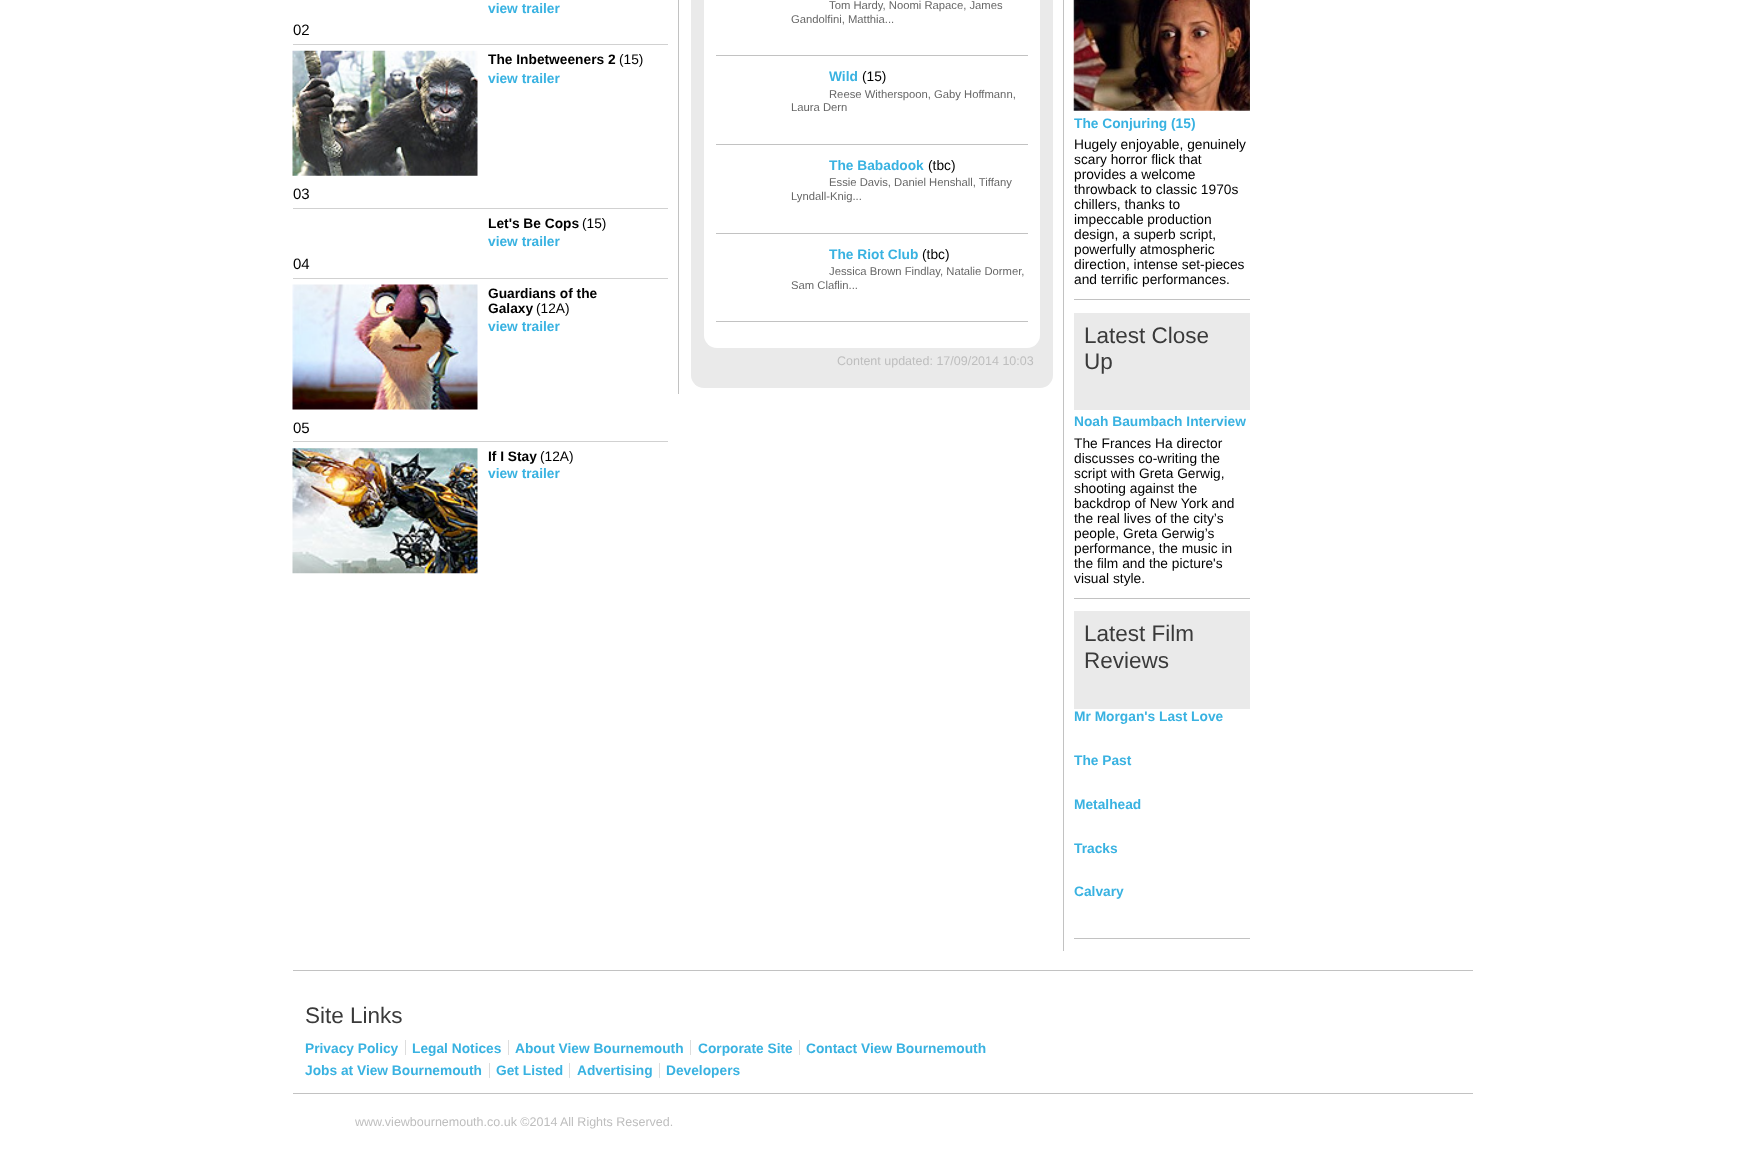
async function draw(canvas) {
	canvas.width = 1764;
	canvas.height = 1151;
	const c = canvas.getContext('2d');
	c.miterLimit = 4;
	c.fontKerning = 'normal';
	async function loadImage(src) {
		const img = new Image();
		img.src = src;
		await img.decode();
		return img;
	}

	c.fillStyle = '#fff';
	c.fillRect(0, 0, 1764, 1151);
	c.font = 'bold 13.75px Liberation Sans';
	c.fillStyle = '#39b2e1';
	c.fillText('view trailer', 488, 13);
	c.fillStyle = '#d1d1d1';
	c.fillRect(293, 44, 375, 1);
	c.font = '15px Liberation Sans';
	c.fillStyle = '#000';
	c.fillText('02', 293, 35);
	c.drawImage(await loadImage('img1.png'), 292, 50, 186, 126);
	c.font = 'bold 13.75px Liberation Sans';
	c.fillText('The Inbetweeners 2', 488, 64);
	c.font = '13.75px Liberation Sans';
	c.fillText('(15)', 619, 64);
	c.font = 'bold 13.75px Liberation Sans';
	c.fillStyle = '#39b2e1';
	c.fillText('view trailer', 488, 83);
	c.fillStyle = '#d1d1d1';
	c.fillRect(293, 208, 375, 1);
	c.font = '15px Liberation Sans';
	c.fillStyle = '#000';
	c.fillText('03', 293, 199);
	c.font = 'bold 13.75px Liberation Sans';
	c.fillText('Let\'s Be Cops', 488, 228);
	c.font = '13.75px Liberation Sans';
	c.fillText('(15)', 582, 228);
	c.font = 'bold 13.75px Liberation Sans';
	c.fillStyle = '#39b2e1';
	c.fillText('view trailer', 488, 246);
	c.fillStyle = '#d1d1d1';
	c.fillRect(293, 278, 375, 1);
	c.font = '15px Liberation Sans';
	c.fillStyle = '#000';
	c.fillText('04', 293, 269);
	c.drawImage(await loadImage('img2.png'), 292, 284, 186, 126);
	c.font = 'bold 13.75px Liberation Sans';
	c.fillText('Guardians of the', 488, 298);
	c.fillText('Galaxy', 488, 313);
	c.font = '13.75px Liberation Sans';
	c.fillText('(12A)', 536, 313);
	c.font = 'bold 13.75px Liberation Sans';
	c.fillStyle = '#39b2e1';
	c.fillText('view trailer', 488, 331);
	c.fillStyle = '#d1d1d1';
	c.fillRect(293, 441, 375, 1);
	c.font = '15px Liberation Sans';
	c.fillStyle = '#000';
	c.fillText('05', 293, 433);
	c.drawImage(await loadImage('img3.png'), 292, 448, 186, 126);
	c.font = 'bold 13.75px Liberation Sans';
	c.fillText('If I Stay', 488, 461);
	c.font = '13.75px Liberation Sans';
	c.fillText('(12A)', 540, 461);
	c.font = 'bold 13.75px Liberation Sans';
	c.fillStyle = '#39b2e1';
	c.fillText('view trailer', 488, 478);
	c.fillStyle = '#c2c2c2';
	c.fillRect(678, 0, 1, 394);
	c.fillStyle = '#eaeaea';
	c.beginPath();
	c.roundRect(691, -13, 362, 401, 13);
	c.fill();
	c.fillStyle = '#fff';
	c.beginPath();
	c.roundRect(704, -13, 336, 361, 13);
	c.fill();
	c.fillStyle = '#c2c2c2';
	c.fillRect(716, 55, 312, 1);
	c.font = '11.25px Liberation Sans';
	c.fillStyle = '#666';
	c.fillText('Tom Hardy, Noomi Rapace, James', 829, 9);
	c.fillText('Gandolfini, Matthia...', 791, 23);
	c.fillStyle = '#c2c2c2';
	c.fillRect(716, 144, 312, 1);
	c.font = 'bold 13.75px Liberation Sans';
	c.fillStyle = '#39b2e1';
	c.fillText('Wild', 829, 81);
	c.font = '13.75px Liberation Sans';
	c.fillStyle = '#000';
	c.fillText('(15)', 862, 81);
	c.font = '11.25px Liberation Sans';
	c.fillStyle = '#666';
	c.fillText('Reese Witherspoon, Gaby Hoffmann,', 829, 98);
	c.fillText('Laura Dern', 791, 111);
	c.fillStyle = '#c2c2c2';
	c.fillRect(716, 233, 312, 1);
	c.font = 'bold 13.75px Liberation Sans';
	c.fillStyle = '#39b2e1';
	c.fillText('The Babadook', 829, 170);
	c.font = '13.75px Liberation Sans';
	c.fillStyle = '#000';
	c.fillText('(tbc)', 928, 170);
	c.font = '11.25px Liberation Sans';
	c.fillStyle = '#666';
	c.fillText('Essie Davis, Daniel Henshall, Tiffany', 829, 186);
	c.fillText('Lyndall-Knig...', 791, 200);
	c.fillStyle = '#c2c2c2';
	c.fillRect(716, 321, 312, 1);
	c.font = 'bold 13.75px Liberation Sans';
	c.fillStyle = '#39b2e1';
	c.fillText('The Riot Club', 829, 259);
	c.font = '13.75px Liberation Sans';
	c.fillStyle = '#000';
	c.fillText('(tbc)', 922, 259);
	c.font = '11.25px Liberation Sans';
	c.fillStyle = '#666';
	c.fillText('Jessica Brown Findlay, Natalie Dormer,', 829, 275);
	c.fillText('Sam Claflin...', 791, 289);
	c.font = '12.5px Liberation Sans';
	c.fillStyle = '#bebebe';
	c.fillText('Content updated: 17/09/2014 10:03', 837, 365);
	c.fillStyle = '#c2c2c2';
	c.fillRect(1063, 0, 1, 951);
	c.fillRect(1074, 299, 176, 1);
	c.drawImage(await loadImage('img4.png'), 1073, 0, 177, 111);
	c.font = 'bold 13.75px Liberation Sans';
	c.fillStyle = '#39b2e1';
	c.fillText('The Conjuring (15)', 1074, 128);
	c.font = '13.75px Liberation Sans';
	c.fillStyle = '#000';
	for (const [text, x, y] of [
		['Hugely enjoyable, genuinely', 1074, 149],
		['scary horror flick that', 1074, 164],
		['provides a welcome', 1074, 179],
		['throwback to classic 1970s', 1074, 194],
		['chillers, thanks to', 1074, 209],
		['impeccable production', 1074, 224],
		['design, a superb script,', 1074, 239],
		['powerfully atmospheric', 1074, 254],
		['direction, intense set-pieces', 1074, 269],
		['and terrific performances.', 1074, 284],
	]) {
		c.fillText(text, x, y);
	}
	c.fillStyle = '#eaeaea';
	c.fillRect(1074, 313, 176, 97);
	c.font = '22.5px Liberation Sans';
	c.fillStyle = '#3a3a3a';
	c.fillText('Latest Close', 1084, 343);
	c.fillText('Up', 1084, 369);
	c.fillStyle = '#c2c2c2';
	c.fillRect(1074, 598, 176, 1);
	c.font = 'bold 13.75px Liberation Sans';
	c.fillStyle = '#39b2e1';
	c.fillText('Noah Baumbach Interview', 1074, 426);
	c.font = '13.75px Liberation Sans';
	c.fillStyle = '#000';
	for (const [text, x, y] of [
		['The Frances Ha director', 1074, 448],
		['discusses co-writing the', 1074, 463],
		['script with Greta Gerwig,', 1074, 478],
		['shooting against the', 1074, 493],
		['backdrop of New York and', 1074, 508],
		['the real lives of the city’s', 1074, 523],
		['people, Greta Gerwig’s', 1074, 538],
		['performance, the music in', 1074, 553],
		['the film and the picture\'s', 1074, 568],
		['visual style.', 1074, 583],
	]) {
		c.fillText(text, x, y);
	}
	c.fillStyle = '#eaeaea';
	c.fillRect(1074, 611, 176, 98);
	c.font = '22.5px Liberation Sans';
	c.fillStyle = '#3a3a3a';
	c.fillText('Latest Film', 1084, 641);
	c.fillText('Reviews', 1084, 668);
	c.fillStyle = '#c2c2c2';
	c.fillRect(1074, 938, 176, 1);
	c.font = 'bold 13.75px Liberation Sans';
	c.fillStyle = '#39b2e1';
	for (const [text, x, y] of [
		['Mr Morgan\'s Last Love', 1074, 721],
		['The Past', 1074, 765],
		['Metalhead', 1074, 809],
		['Tracks', 1074, 853],
		['Calvary', 1074, 896],
	]) {
		c.fillText(text, x, y);
	}
	c.fillStyle = '#c2c2c2';
	c.fillRect(293, 970, 1180, 1);
	c.font = '22.5px Liberation Sans';
	c.fillStyle = '#3a3a3a';
	c.fillText('Site Links', 305, 1023);
	c.fillStyle = '#ddd';
	c.fillRect(405, 1040, 1, 15);
	c.font = 'bold 13.75px Liberation Sans';
	c.fillStyle = '#39b2e1';
	c.fillText('Privacy Policy', 305, 1053);
	c.fillStyle = '#ddd';
	c.fillRect(508, 1040, 1, 15);
	c.fillStyle = '#39b2e1';
	c.fillText('Legal Notices', 412, 1053);
	c.fillStyle = '#ddd';
	c.fillRect(690, 1040, 1, 15);
	c.fillStyle = '#39b2e1';
	c.fillText('About View Bournemouth', 515, 1053);
	c.fillStyle = '#ddd';
	c.fillRect(799, 1040, 1, 15);
	c.fillStyle = '#39b2e1';
	c.fillText('Corporate Site', 698, 1053);
	c.fillText('Contact View Bournemouth', 806, 1053);
	c.fillStyle = '#ddd';
	c.fillRect(489, 1063, 1, 15);
	c.fillStyle = '#39b2e1';
	c.fillText('Jobs at View Bournemouth', 305, 1075);
	c.fillStyle = '#ddd';
	c.fillRect(569, 1063, 1, 15);
	c.fillStyle = '#39b2e1';
	c.fillText('Get Listed', 496, 1075);
	c.fillStyle = '#ddd';
	c.fillRect(659, 1063, 1, 15);
	c.fillStyle = '#39b2e1';
	c.fillText('Advertising', 577, 1075);
	c.fillText('Developers', 666, 1075);
	c.fillStyle = '#c2c2c2';
	c.fillRect(293, 1093, 1180, 1);
	c.font = '12.5px Liberation Sans';
	c.fillStyle = '#bebebe';
	c.fillText('www.viewbournemouth.co.uk ©2014', 355, 1126);
	c.fillText('All Rights Reserved.', 560, 1126);
}

draw(document.querySelector('canvas'));
